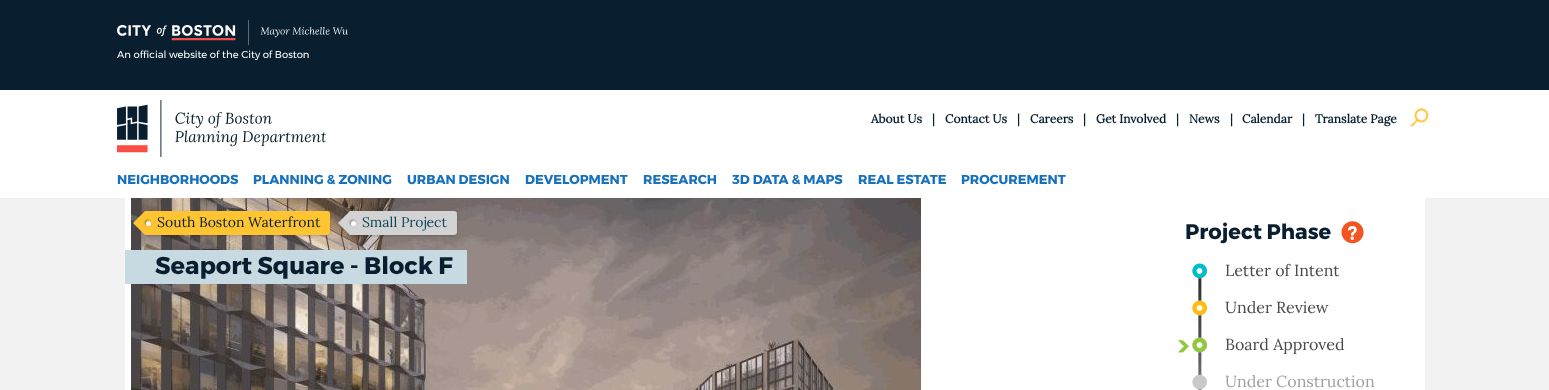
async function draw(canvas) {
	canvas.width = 1549;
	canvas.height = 390;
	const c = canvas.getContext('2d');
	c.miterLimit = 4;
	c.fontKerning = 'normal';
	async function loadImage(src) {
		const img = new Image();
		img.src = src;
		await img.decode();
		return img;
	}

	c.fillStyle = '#f2f2f2';
	c.fillRect(0, 0, 1549, 390);
	c.fillStyle = '#fff';
	c.fillRect(0, 90, 1549, 108);
	c.fillStyle = '#091f2f';
	c.fillRect(0, 0, 1549, 90);
	c.drawImage(await loadImage('img1.png'), 117, 20, 231, 26);
	c.font = '10px Montserrat';
	c.fillStyle = '#fff';
	c.fillText('An official website of the City of Boston', 117, 58);
	c.drawImage(await loadImage('img2.png'), 117, 100, 209, 57);
	c.font = 'bold 12px Lora';
	c.fillStyle = '#091f2f';
	for (const [text, x, y] of [
		['About Us', 871, 123],
		['|', 932, 123],
		['Contact Us', 945, 123],
		['|', 1017, 123],
		['Careers', 1030, 123],
		['|', 1083, 123],
		['Get Involved', 1096, 123],
		['|', 1176, 123],
		['News', 1189, 123],
		['|', 1230, 123],
		['Calendar', 1242, 123],
		['|', 1302, 123],
		['Translate Page', 1315, 123],
	]) {
		c.fillText(text, x, y);
	}
	c.drawImage(await loadImage('img3.png'), 1410, 108, 19, 19);
	c.font = 'bold 13px Montserrat';
	c.fillStyle = '#1871bd';
	for (const [text, x, y] of [
		['NEIGHBORHOODS', 117, 184],
		['PLANNING & ZONING', 253, 184],
		['URBAN DESIGN', 407, 184],
		['DEVELOPMENT', 525, 184],
		['RESEARCH', 643, 184],
		['3D DATA & MAPS', 732, 184],
		['REAL ESTATE', 858, 184],
		['PROCUREMENT', 961, 184],
	]) {
		c.fillText(text, x, y);
	}
	c.fillStyle = '#fff';
	c.fillRect(125, 198, 1300, 192);
	c.drawImage(await loadImage('img10.png'), 131, 198, 790, 192);
	c.fillStyle = '#00000033';
	c.filter = 'blur(1px)';
	c.beginPath();
	c.roundRect(145, 212, 185, 24, 3);
	c.fill();
	c.filter = 'none';
	c.fillStyle = '#ffc431';
	c.beginPath();
	c.roundRect(145, 211, 185, 24, [0, 3, 3, 0]);
	c.fill();
	c.beginPath();
	c.moveTo(145, 211);
	c.lineTo(145, 235);
	c.lineTo(133, 223);
	c.closePath();
	c.fill();
	c.fillStyle = '#00000066';
	c.filter = 'blur(1px)';
	c.beginPath();
	c.roundRect(145, 220, 5, 5, 2.5);
	c.fill();
	c.filter = 'none';
	c.fillStyle = '#fff';
	c.beginPath();
	c.arc(148.5, 223.5, 2.5, 0, 2 * Math.PI);
	c.fill();
	c.font = '14px Lora';
	c.fillStyle = '#091f2f';
	c.fillText('South Boston Waterfront', 157, 227);
	c.fillStyle = '#00000033';
	c.filter = 'blur(1px)';
	c.beginPath();
	c.roundRect(350, 212, 107, 24, 3);
	c.fill();
	c.filter = 'none';
	c.fillStyle = '#d3d3d3';
	c.beginPath();
	c.roundRect(350, 211, 107, 24, [0, 3, 3, 0]);
	c.fill();
	c.beginPath();
	c.moveTo(350, 211);
	c.lineTo(350, 235);
	c.lineTo(338, 223);
	c.closePath();
	c.fill();
	c.fillStyle = '#00000066';
	c.filter = 'blur(1px)';
	c.beginPath();
	c.roundRect(350, 220, 5, 5, 2.5);
	c.fill();
	c.filter = 'none';
	c.fillStyle = '#fff';
	c.beginPath();
	c.arc(353.5, 223.5, 2.5, 0, 2 * Math.PI);
	c.fill();
	c.fillStyle = '#0f475a';
	c.fillText('Small Project', 362, 227);
	c.font = 'bold 21px Montserrat';
	c.fillStyle = '#091f2f';
	c.fillText('Project Phase', 1185, 239);
	c.drawImage(await loadImage('img4.png'), 1341, 221, 23, 23);
	c.drawImage(await loadImage('img5.png'), 1192, 263, 15, 127);
	c.drawImage(await loadImage('img6.png'), 1192, 263, 15, 16);
	c.font = '16px Lora';
	c.fillStyle = '#4a4a4a';
	c.fillText('Letter of Intent', 1225, 276);
	c.drawImage(await loadImage('img7.png'), 1192, 300, 15, 16);
	c.fillText('Under Review', 1225, 313);
	c.drawImage(await loadImage('img8.png'), 1177, 340, 12, 13);
	c.drawImage(await loadImage('img9.png'), 1192, 337, 15, 16);
	c.fillText('Board Approved', 1225, 350);
	c.fillStyle = '#a0a0a0';
	c.fillText('Under Construction', 1225, 387);
	c.fillStyle = '#c7dae1';
	c.fillRect(125, 250, 342, 34);
	c.font = 'bold 24px Montserrat';
	c.fillStyle = '#091f2f';
	c.fillText('Seaport Square - Block F', 155, 274);
}

draw(document.querySelector('canvas'));
